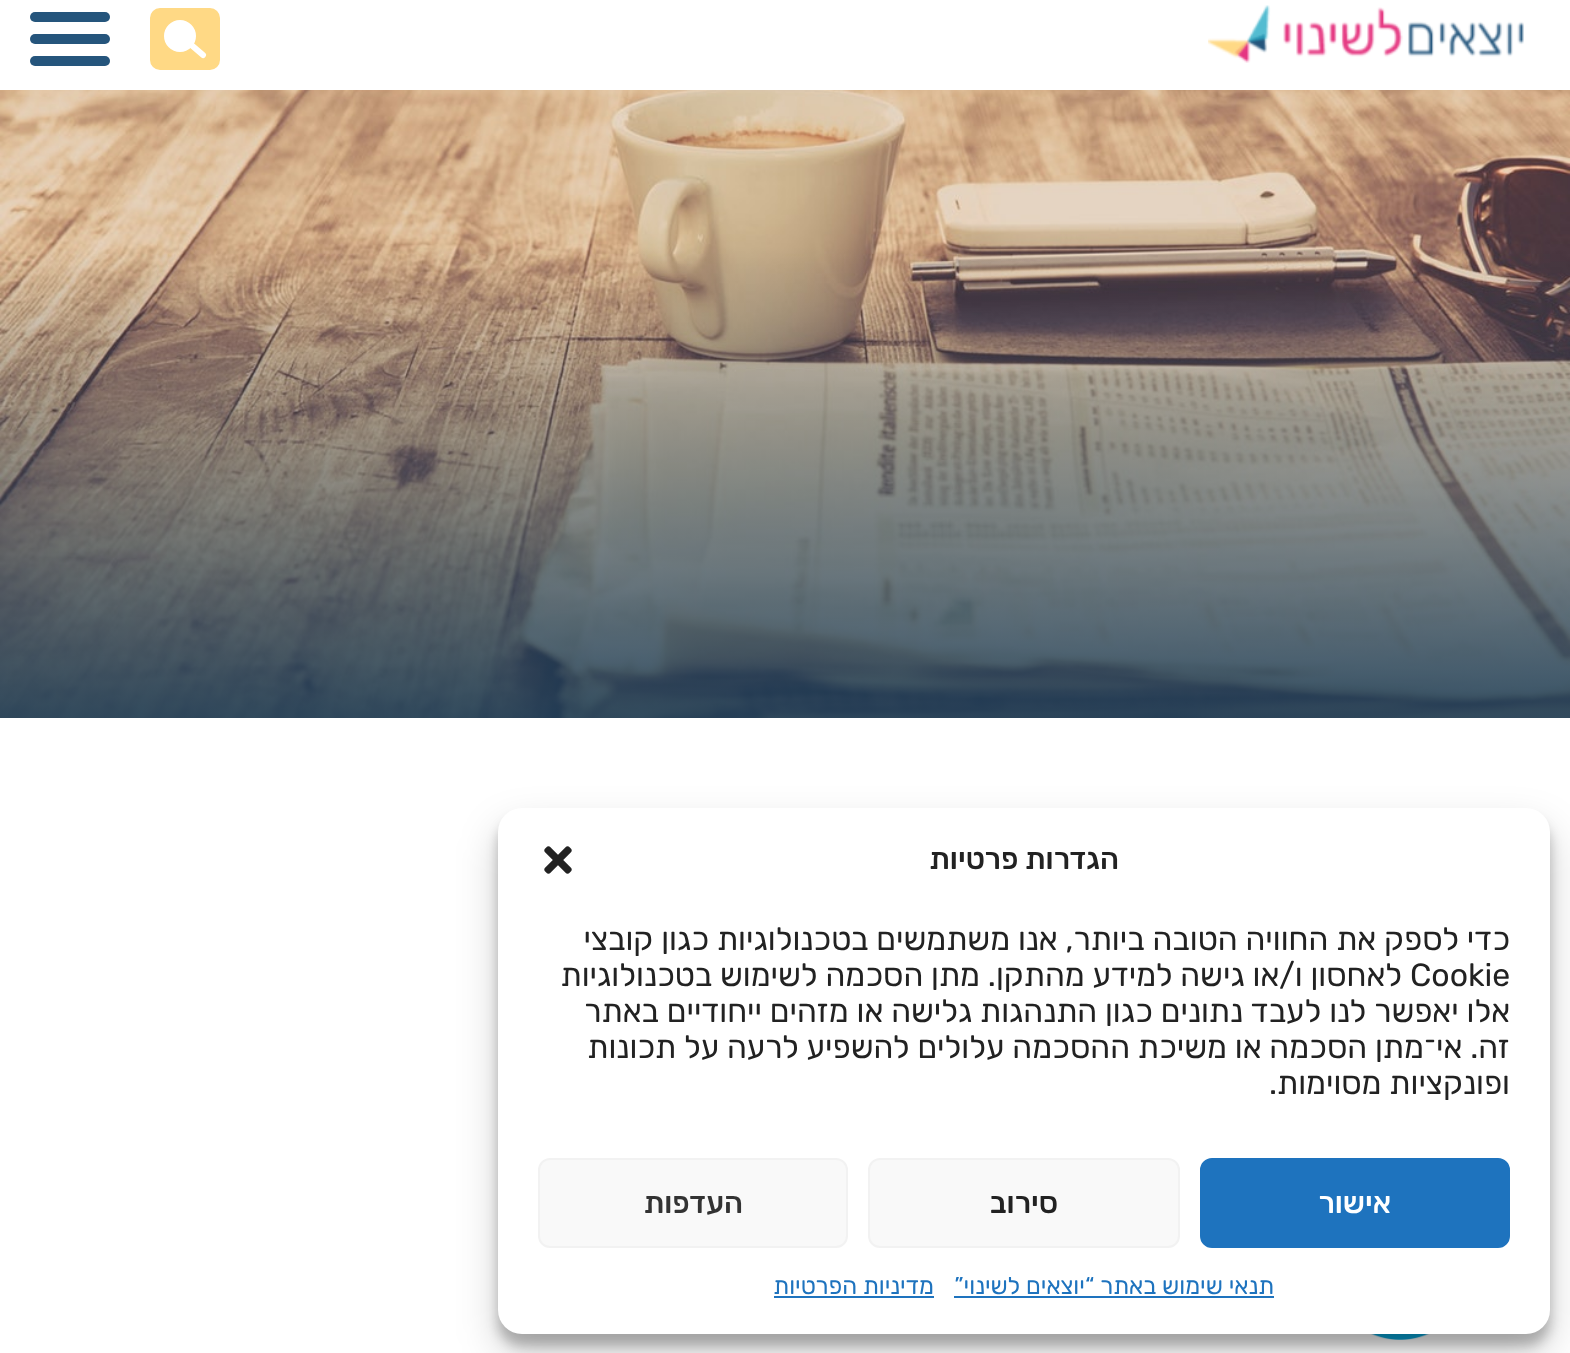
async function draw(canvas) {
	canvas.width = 1570;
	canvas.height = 1353;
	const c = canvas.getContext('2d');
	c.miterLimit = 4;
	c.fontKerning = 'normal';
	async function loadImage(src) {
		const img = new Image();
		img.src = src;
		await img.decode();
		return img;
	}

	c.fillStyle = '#fff';
	c.fillRect(0, 0, 1570, 1353);
	c.drawImage(await loadImage('img1.png'), 1208, 5, 316, 58);
	c.fillStyle = '#ffd985';
	c.beginPath();
	c.roundRect(152, 10, 66, 58, 8);
	c.fill();
	c.strokeStyle = '#ffd985';
	c.lineWidth = 4;
	c.stroke();
	c.fillStyle = '#fff';
	c.beginPath();
	c.arc(180, 36, 15, 0, 2 * Math.PI);
	c.fill();
	c.strokeStyle = '#fff';
	c.lineWidth = 2;
	c.stroke();
	c.beginPath();
	c.moveTo(189, 43);
	c.lineTo(203, 55);
	c.lineWidth = 6;
	c.lineCap = 'round';
	c.stroke();
	c.fillStyle = '#25557c';
	c.beginPath();
	c.roundRect(30, 12, 80, 10, 5);
	c.fill();
	c.beginPath();
	c.roundRect(30, 34, 80, 10, 5);
	c.fill();
	c.beginPath();
	c.roundRect(30, 56, 80, 10, 5);
	c.fill();
	c.drawImage(await loadImage('img2.png'), 0, 90, 1570, 628);
	c.drawImage(await loadImage('img3.png'), 1330, 1334, 140, 6);
	c.fillStyle = '#0000003b';
	c.filter = 'blur(6px)';
	c.beginPath();
	c.roundRect(498, 820, 1052, 526, 24);
	c.fill();
	c.filter = 'none';
	c.fillStyle = '#00000030';
	c.filter = 'blur(20px)';
	c.beginPath();
	c.roundRect(498, 828, 1052, 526, 24);
	c.fill();
	c.filter = 'none';
	c.fillStyle = '#fff';
	c.beginPath();
	c.roundRect(498, 808, 1052, 526, 24);
	c.fill();
	c.direction = 'rtl';
	c.font = '500 30px Rubik';
	c.fillStyle = '#222';
	c.fillText('הגדרות פרטיות', 1119, 869);
	c.drawImage(await loadImage('img4.png'), 544, 846, 28, 28);
	c.font = '32px Rubik';
	c.fillText('כדי לספק את החוויה הטובה ביותר, אנו משתמשים בטכנולוגיות כגון קובצי', 1510, 950);
	c.direction = 'ltr';
	c.fillText('Cookie', 1410, 986);
	c.direction = 'rtl';
	for (const [text, x, y] of [
		['לאחסון ו/או גישה למידע מהתקן. מתן הסכמה לשימוש בטכנולוגיות', 1402, 986],
		['אלו יאפשר לנו לעבד נתונים כגון התנהגות גלישה או מזהים ייחודיים באתר', 1510, 1022],
		['זה. אי־מתן הסכמה או משיכת ההסכמה עלולים להשפיע לרעה על תכונות', 1510, 1058],
		['ופונקציות מסוימות.', 1510, 1094],
	]) {
		c.fillText(text, x, y);
	}
	c.fillStyle = '#1e73be';
	c.beginPath();
	c.roundRect(1201, 1159, 308, 88, 11);
	c.fill();
	c.strokeStyle = '#1e73be';
	c.lineWidth = 2;
	c.stroke();
	c.font = '500 30px Rubik';
	c.fillStyle = '#fff';
	c.fillText('אישור', 1391, 1213);
	c.fillStyle = '#f9f9f9';
	c.beginPath();
	c.roundRect(869, 1159, 310, 88, 11);
	c.fill();
	c.strokeStyle = '#f2f2f2';
	c.stroke();
	c.fillStyle = '#222';
	c.fillText('סירוב', 1058, 1213);
	c.fillStyle = '#f9f9f9';
	c.beginPath();
	c.roundRect(539, 1159, 308, 88, 11);
	c.fill();
	c.stroke();
	c.fillStyle = '#333';
	c.fillText('העדפות', 743, 1213);
	c.font = '24px Rubik';
	c.fillStyle = '#1e73be';
	c.fillText('תנאי שימוש באתר “יוצאים לשינוי”', 1274, 1294);
	c.fillRect(954, 1296, 320, 2);
	c.fillText('מדיניות הפרטיות', 934, 1294);
	c.fillRect(774, 1296, 160, 2);
}

draw(document.querySelector('canvas'));
